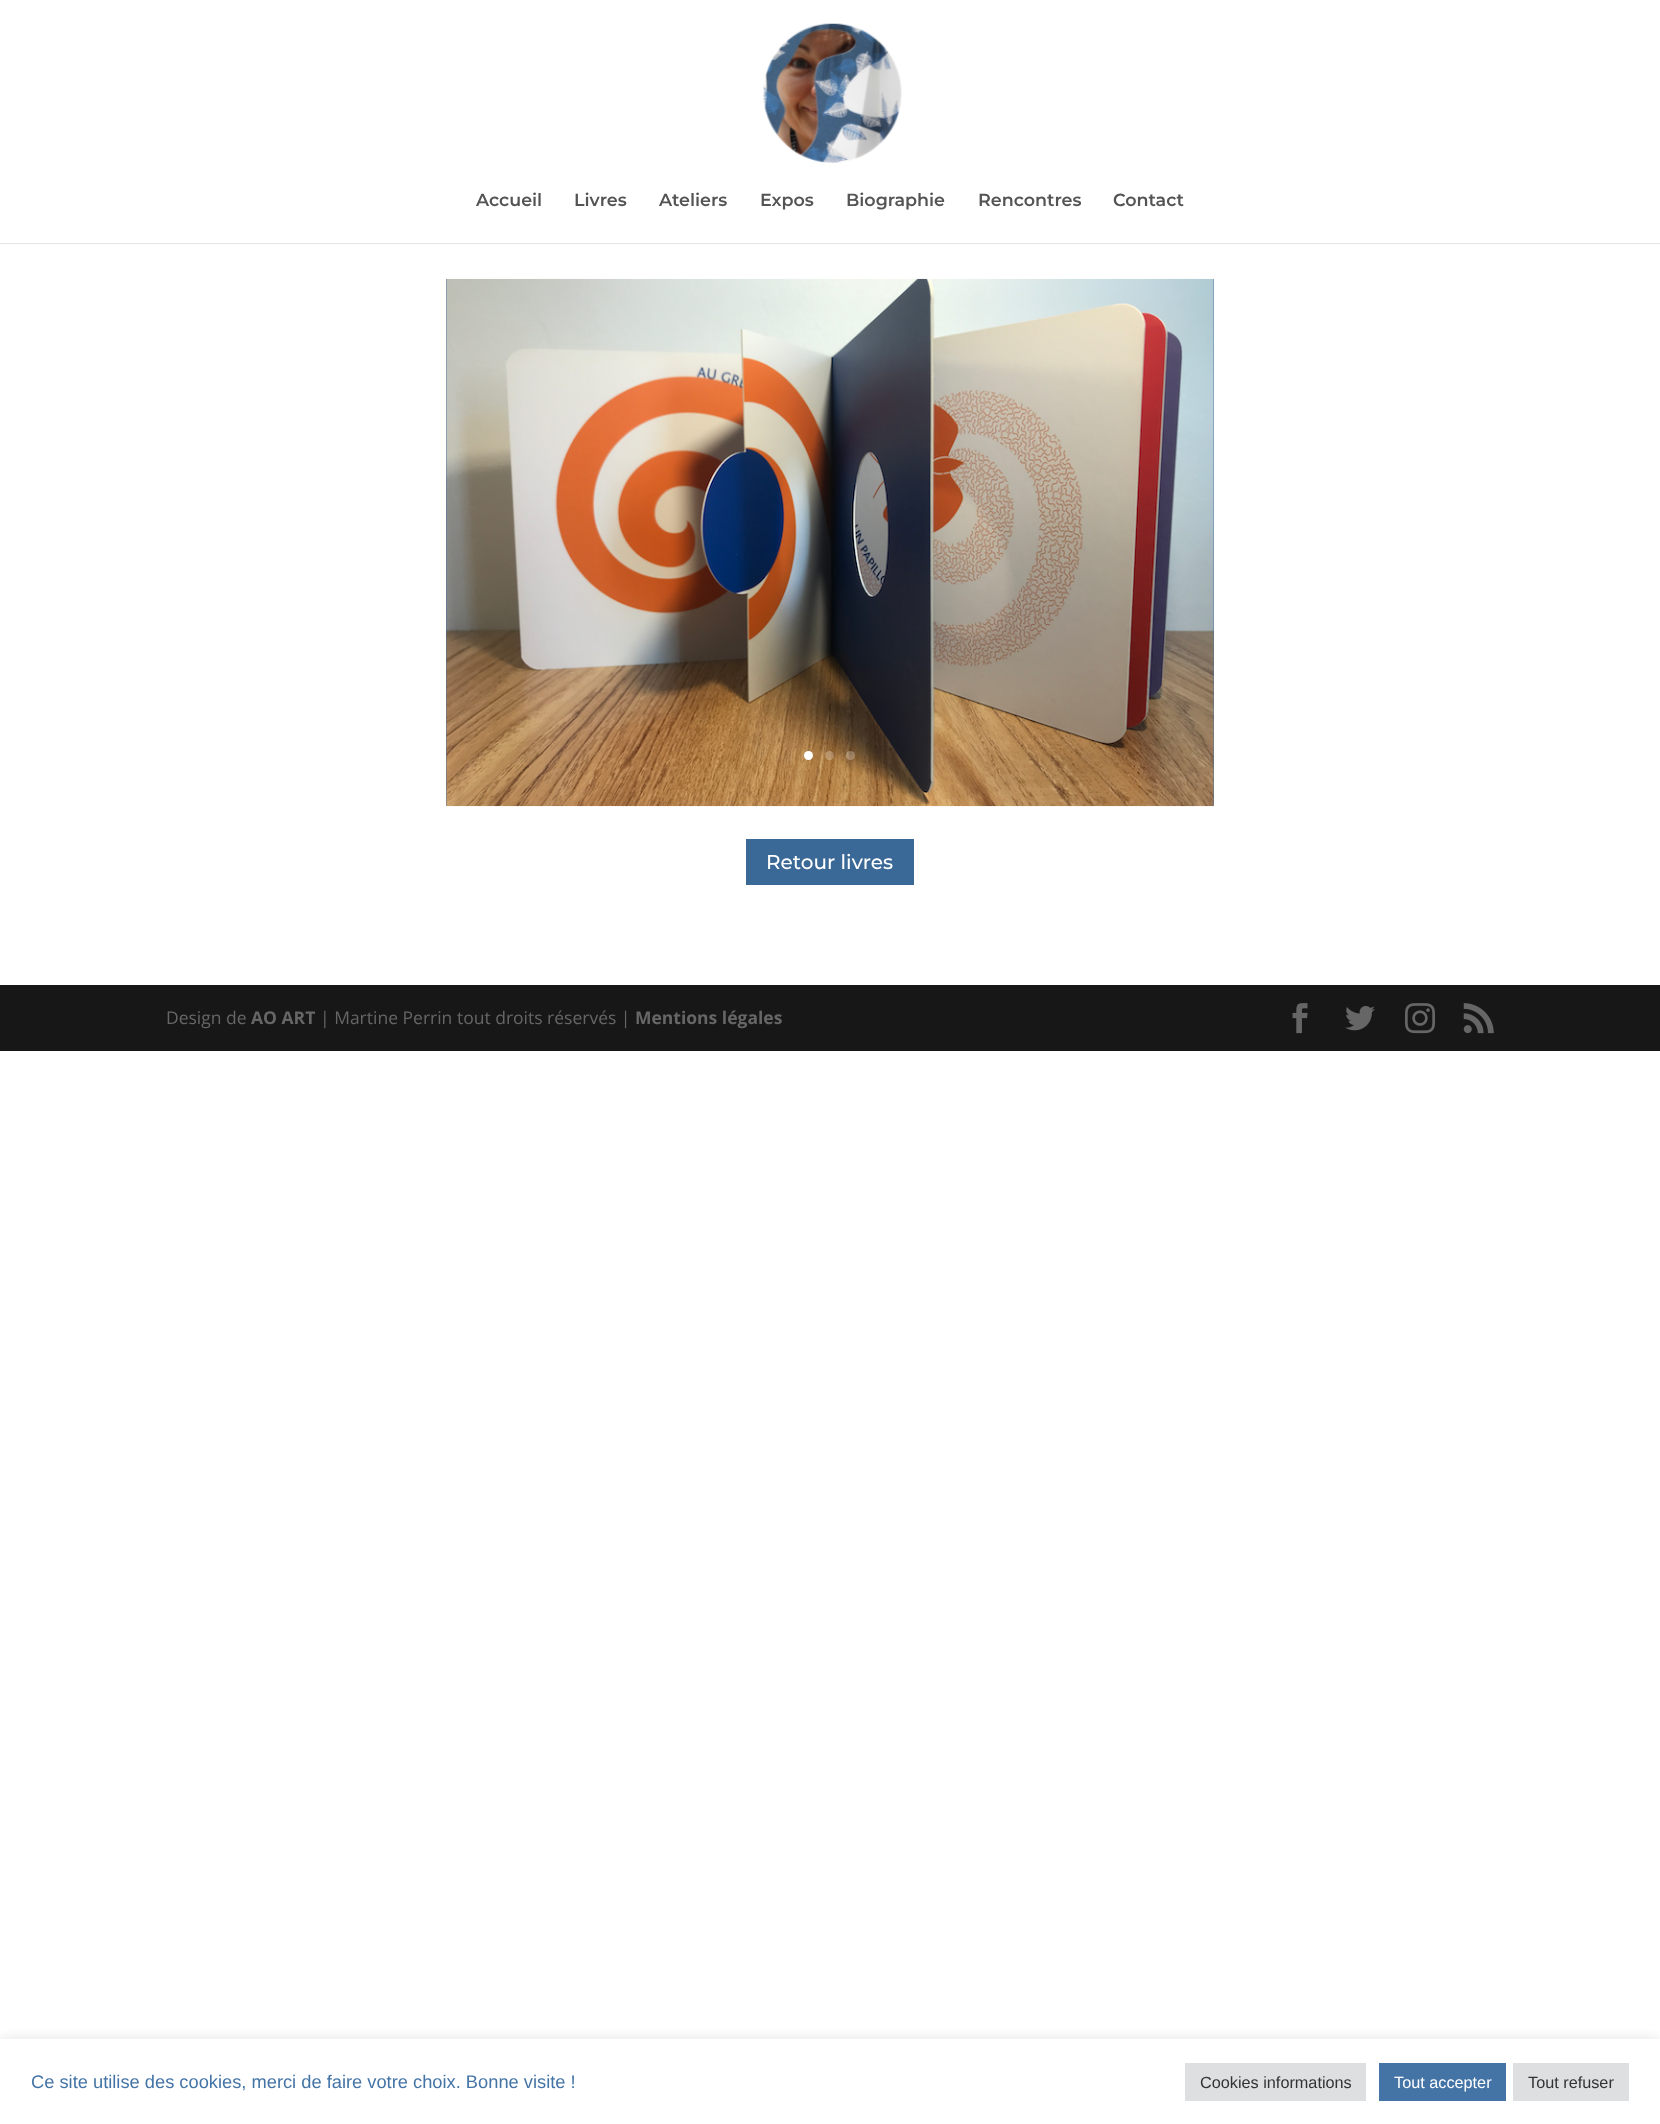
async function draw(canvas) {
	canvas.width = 1660;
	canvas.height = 2124;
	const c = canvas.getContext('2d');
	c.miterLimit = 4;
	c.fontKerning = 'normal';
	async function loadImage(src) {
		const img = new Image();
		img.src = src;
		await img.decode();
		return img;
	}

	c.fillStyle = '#fff';
	c.fillRect(0, 0, 1660, 2124);
	c.fillStyle = '#e6e6e6';
	c.fillRect(0, 243, 1660, 1);
	c.drawImage(await loadImage('img1.png'), 763, 23, 139, 140);
	c.font = '100 17.5px "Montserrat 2"';
	c.fillStyle = '#545454';
	for (const [text, x, y] of [
		['Accueil', 476, 206],
		['Livres', 574, 206],
		['Ateliers', 659, 206],
		['Expos', 760, 206],
		['Biographie', 846, 206],
		['Rencontres', 978, 206],
		['Contact', 1113, 206],
	]) {
		c.fillText(text, x, y);
	}
	c.fillStyle = '#4474a6';
	c.fillRect(446, 279, 768, 527);
	c.drawImage(await loadImage('img2.png'), 446, 278, 768, 529);
	c.fillStyle = '#fff';
	c.beginPath();
	c.arc(808.5, 755.5, 4.5, 0, 2 * Math.PI);
	c.fill();
	c.fillStyle = '#ffffff40';
	c.beginPath();
	c.arc(829.5, 755.5, 4.5, 0, 2 * Math.PI);
	c.fill();
	c.beginPath();
	c.arc(850.5, 755.5, 4.5, 0, 2 * Math.PI);
	c.fill();
	c.fillStyle = '#3b6997';
	c.fillRect(746, 839, 168, 46);
	c.font = '100 20px Montserrat';
	c.fillStyle = '#fff';
	c.fillText('Retour livres', 766, 869);
	c.fillStyle = '#171717';
	c.fillRect(0, 985, 1660, 66);
	c.font = '17.5px Open Sans';
	c.fillStyle = '#666';
	c.fillText('Design de', 166, 1024);
	c.font = 'bold 17.5px Open Sans';
	c.fillText('AO ART', 251, 1024);
	c.font = '17.5px Open Sans';
	c.fillText('| Martine Perrin tout droits réservés |', 320, 1024);
	c.font = 'bold 17.5px Open Sans';
	c.fillText('Mentions légales', 635, 1024);
	c.drawImage(await loadImage('img3.png'), 1292, 1003, 16, 31);
	c.drawImage(await loadImage('img4.png'), 1345, 1006, 30, 25);
	c.drawImage(await loadImage('img5.png'), 1405, 1003, 30, 31);
	c.drawImage(await loadImage('img6.png'), 1463, 1003, 31, 31);
	c.save();
	c.beginPath();
	c.rect(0, 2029, 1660, 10);
	c.clip();
	c.fillStyle = '#acabab4d';
	c.filter = 'blur(6px)';
	c.beginPath();
	c.rect(0, 2038, 1660, 86);
	c.fill();
	c.filter = 'none';
	c.restore();
	c.font = '18.3px Liberation Sans';
	c.fillStyle = '#4474a6';
	c.fillText('Ce site utilise des cookies, merci de faire votre choix. Bonne visite !', 31, 2088);
	c.fillStyle = '#dedfe0';
	c.fillRect(1185, 2063, 181, 38);
	c.font = '16.25px Liberation Sans';
	c.fillStyle = '#333';
	c.fillText('Cookies informations', 1200, 2088);
	c.fillStyle = '#4474a6';
	c.fillRect(1379, 2063, 127, 38);
	c.fillStyle = '#fff';
	c.fillText('Tout accepter', 1394, 2088);
	c.fillStyle = '#dedfe0';
	c.fillRect(1513, 2063, 116, 38);
	c.fillStyle = '#333';
	c.fillText('Tout refuser', 1528, 2088);
}

draw(document.querySelector('canvas'));
